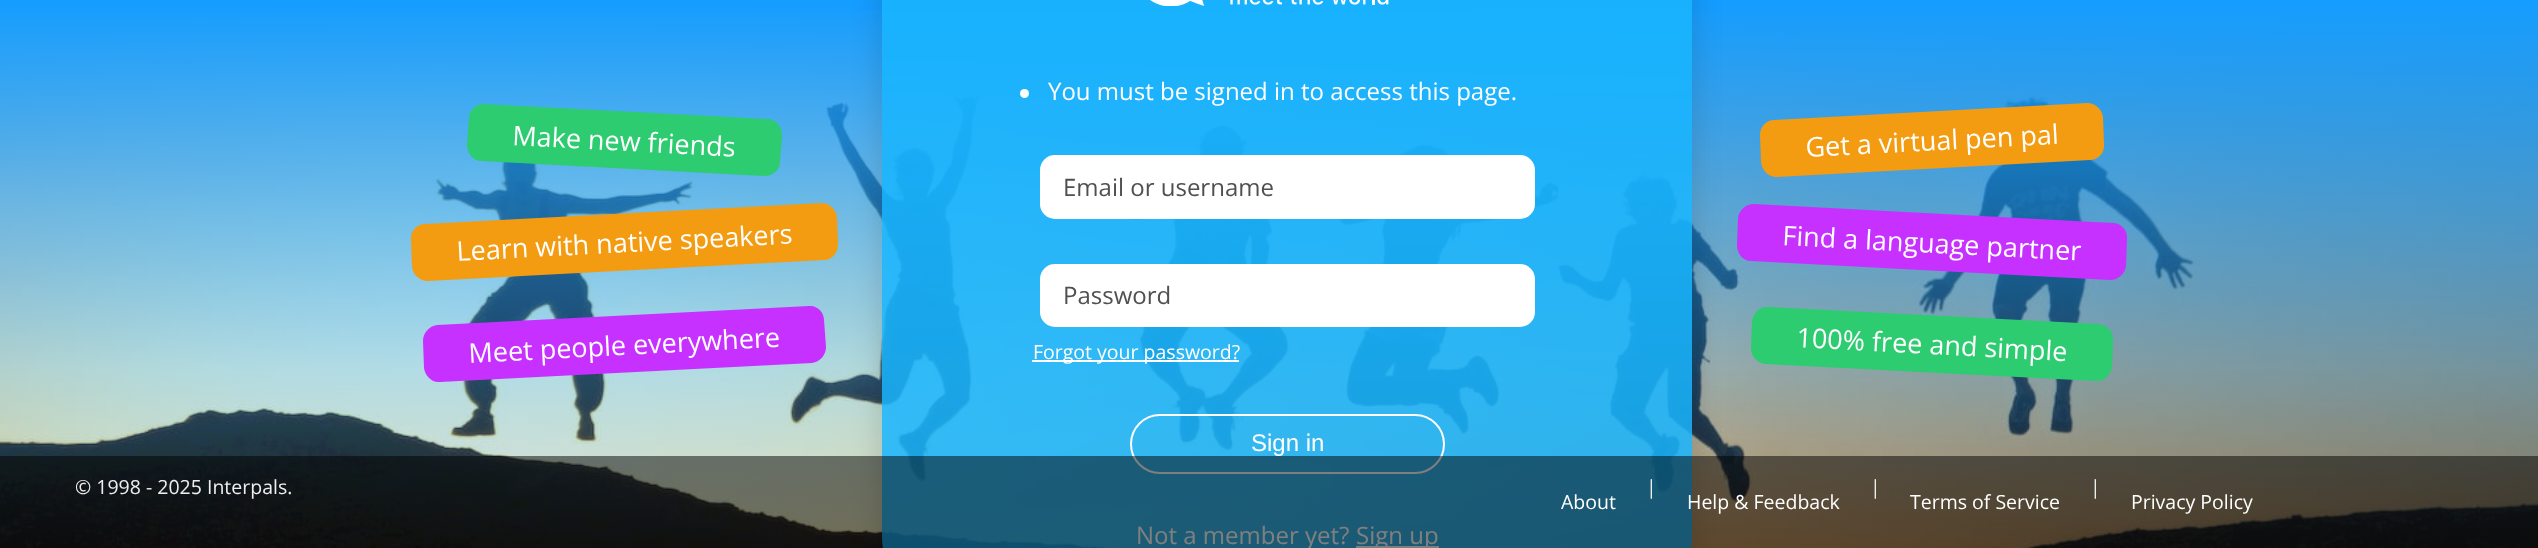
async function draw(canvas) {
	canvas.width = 2538;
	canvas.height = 548;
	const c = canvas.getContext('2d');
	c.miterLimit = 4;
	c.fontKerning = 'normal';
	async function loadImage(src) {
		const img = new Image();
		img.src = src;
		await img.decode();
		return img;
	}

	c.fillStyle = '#159dff';
	c.fillRect(0, 0, 2538, 548);
	c.drawImage(await loadImage('img1.png'), 0, 10, 2538, 538);
	c.fillStyle = '#2ecc71';
	c.beginPath();
	c.moveTo(484, 104);
	c.lineTo(767, 119);
	c.bezierCurveTo(776, 119, 782, 126, 782, 135);
	c.lineTo(780, 162);
	c.bezierCurveTo(780, 170, 773, 176, 764, 176);
	c.lineTo(481, 161);
	c.bezierCurveTo(473, 161, 467, 153, 467, 145);
	c.lineTo(469, 118);
	c.bezierCurveTo(469, 110, 476, 104, 484, 104);
	c.closePath();
	c.fill();
	c.font = '27px Open Sans';
	c.fillStyle = '#fff';
	c.save();
	c.translate(512, 145);
	c.rotate(3 * Math.PI / 180);
	c.fillText('Make new friends', 0, 0);
	c.restore();
	c.save();
	c.beginPath();
	c.moveTo(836, 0);
	c.lineTo(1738, 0);
	c.lineTo(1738, 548);
	c.lineTo(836, 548);
	c.closePath();
	c.moveTo(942, -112);
	c.lineTo(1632, -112);
	c.bezierCurveTo(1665, -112, 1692, -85, 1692, -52);
	c.lineTo(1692, 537);
	c.bezierCurveTo(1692, 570, 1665, 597, 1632, 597);
	c.lineTo(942, 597);
	c.bezierCurveTo(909, 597, 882, 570, 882, 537);
	c.lineTo(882, -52);
	c.bezierCurveTo(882, -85, 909, -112, 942, -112);
	c.closePath();
	c.clip('evenodd');
	c.fillStyle = '#00000026';
	c.filter = 'blur(15px)';
	c.beginPath();
	c.roundRect(882, -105, 810, 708, 60);
	c.fill();
	c.filter = 'none';
	c.restore();
	c.fillStyle = '#f39c12';
	c.beginPath();
	c.moveTo(425, 224);
	c.lineTo(821, 203);
	c.bezierCurveTo(829, 203, 836, 209, 837, 217);
	c.lineTo(838, 244);
	c.bezierCurveTo(838, 253, 832, 260, 824, 260);
	c.lineTo(428, 281);
	c.bezierCurveTo(420, 281, 413, 275, 412, 267);
	c.lineTo(411, 240);
	c.bezierCurveTo(410, 231, 417, 224, 425, 224);
	c.closePath();
	c.fill();
	c.fillStyle = '#fff';
	c.save();
	c.translate(457, 261);
	c.rotate(-3 * Math.PI / 180);
	c.fillText('Learn with native speakers', 0, 0);
	c.restore();
	c.fillStyle = '#c731ff';
	c.beginPath();
	c.moveTo(437, 325);
	c.lineTo(809, 306);
	c.bezierCurveTo(817, 305, 824, 312, 824, 320);
	c.lineTo(826, 347);
	c.bezierCurveTo(826, 355, 820, 362, 812, 363);
	c.lineTo(440, 382);
	c.bezierCurveTo(432, 383, 425, 376, 424, 368);
	c.lineTo(423, 341);
	c.bezierCurveTo(423, 333, 429, 326, 437, 325);
	c.closePath();
	c.fill();
	c.fillStyle = '#fff';
	c.save();
	c.translate(469, 363);
	c.rotate(-3 * Math.PI / 180);
	c.fillText('Meet people everywhere', 0, 0);
	c.restore();
	c.fillStyle = '#19b5fed9';
	c.beginPath();
	c.roundRect(882, -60, 810, 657, 60);
	c.fill();
	c.drawImage(await loadImage('img2.png'), 1150, 0, 239, 6);
	c.fillStyle = '#fff';
	c.beginPath();
	c.arc(1024.5, 93.5, 4.5, 0, 2 * Math.PI);
	c.fill();
	c.font = '24px Open Sans';
	c.fillText('You must be signed in to access this page.', 1048, 100);
	c.beginPath();
	c.roundRect(1040, 155, 495, 64, 15);
	c.fill();
	c.fillStyle = '#505050';
	c.fillText('Email or username', 1063, 196);
	c.fillStyle = '#fff';
	c.beginPath();
	c.roundRect(1040, 264, 495, 63, 15);
	c.fill();
	c.fillStyle = '#505050';
	c.fillText('Password', 1063, 304);
	c.fillStyle = '#fff';
	c.fillRect(1032, 360, 207, 2);
	c.font = '19.5px Open Sans';
	c.fillText('Forgot your password?', 1033, 359);
	c.beginPath();
	c.roundRect(1131, 415, 313, 58, 29);
	c.strokeStyle = '#fff';
	c.lineWidth = 2;
	c.stroke();
	c.font = '24px Liberation Sans';
	c.fillText('Sign in', 1251, 451);
	c.font = '24px Open Sans';
	c.fillText('Not a member yet?', 1136, 544);
	c.fillRect(1356, 546, 83, 2);
	c.fillText('Sign up', 1356, 544);
	c.fillStyle = '#f39c12';
	c.beginPath();
	c.moveTo(1774, 120);
	c.lineTo(2087, 103);
	c.bezierCurveTo(2095, 103, 2102, 109, 2103, 117);
	c.lineTo(2104, 144);
	c.bezierCurveTo(2105, 153, 2098, 160, 2090, 160);
	c.lineTo(1777, 177);
	c.bezierCurveTo(1769, 177, 1762, 171, 1761, 162);
	c.lineTo(1760, 135);
	c.bezierCurveTo(1760, 127, 1766, 120, 1774, 120);
	c.closePath();
	c.fill();
	c.font = '27px Open Sans';
	c.fillStyle = '#fff';
	c.save();
	c.translate(1806, 157);
	c.rotate(-3 * Math.PI / 180);
	c.fillText('Get a virtual pen pal', 0, 0);
	c.restore();
	c.fillStyle = '#c731ff';
	c.beginPath();
	c.moveTo(1754, 204);
	c.lineTo(2113, 223);
	c.bezierCurveTo(2121, 223, 2128, 230, 2127, 239);
	c.lineTo(2126, 266);
	c.bezierCurveTo(2125, 274, 2118, 280, 2110, 280);
	c.lineTo(1751, 261);
	c.bezierCurveTo(1743, 261, 1737, 254, 1737, 245);
	c.lineTo(1738, 218);
	c.bezierCurveTo(1739, 210, 1746, 204, 1754, 204);
	c.closePath();
	c.fill();
	c.fillStyle = '#fff';
	c.save();
	c.translate(1782, 245);
	c.rotate(3 * Math.PI / 180);
	c.fillText('Find a language partner', 0, 0);
	c.restore();
	c.fillStyle = '#2ecc71';
	c.beginPath();
	c.moveTo(1768, 307);
	c.lineTo(2099, 324);
	c.bezierCurveTo(2107, 325, 2114, 332, 2113, 340);
	c.lineTo(2112, 367);
	c.bezierCurveTo(2111, 375, 2104, 382, 2096, 381);
	c.lineTo(1765, 364);
	c.bezierCurveTo(1757, 363, 1751, 356, 1751, 348);
	c.lineTo(1752, 321);
	c.bezierCurveTo(1753, 313, 1760, 306, 1768, 307);
	c.closePath();
	c.fill();
	c.fillStyle = '#fff';
	c.save();
	c.translate(1796, 347);
	c.rotate(3 * Math.PI / 180);
	c.fillText('100% free and simple', 0, 0);
	c.restore();
	c.fillStyle = '#00000080';
	c.fillRect(0, 456, 2538, 92);
	c.font = '19.5px Open Sans';
	c.fillStyle = '#eee';
	for (const [text, x, y] of [
		['© 1998 - 2025 Interpals.', 75, 494],
		['|', 1646, 494],
		['|', 1870, 494],
		['|', 2090, 494],
	]) {
		c.fillText(text, x, y);
	}
	c.fillStyle = '#fff';
	for (const [text, x, y] of [
		['About', 1561, 509],
		['Help & Feedback', 1687, 509],
		['Terms of Service', 1910, 509],
		['Privacy Policy', 2131, 509],
	]) {
		c.fillText(text, x, y);
	}
}

draw(document.querySelector('canvas'));
